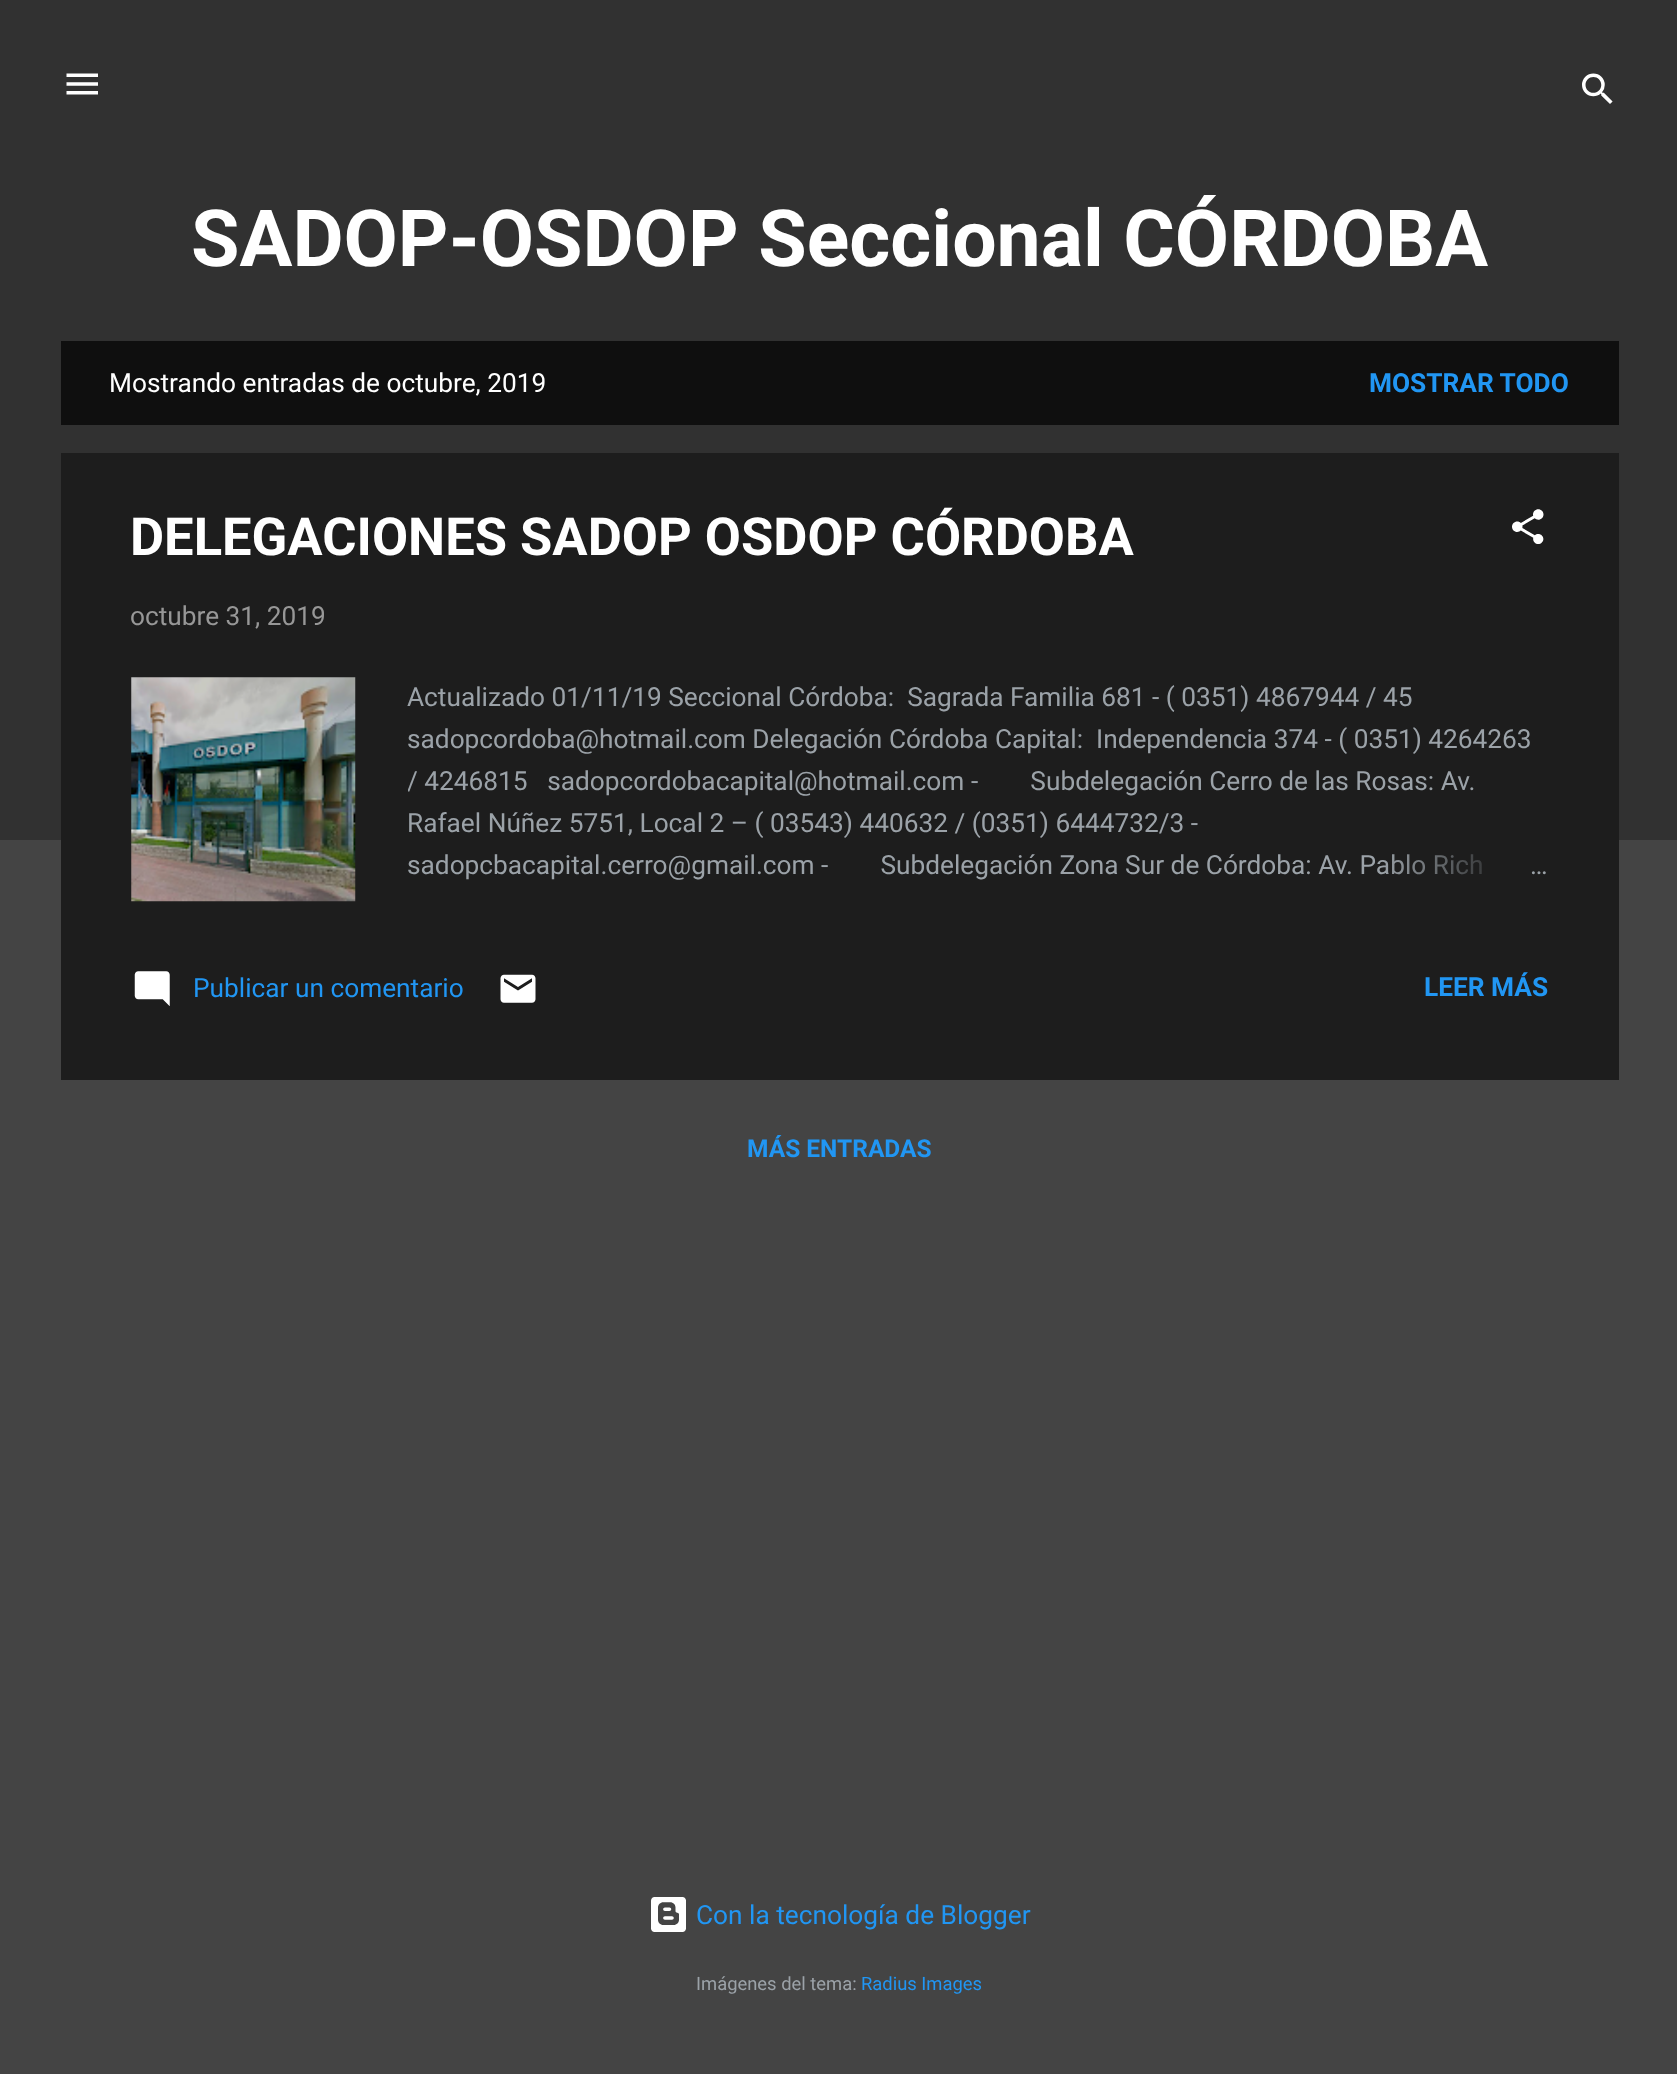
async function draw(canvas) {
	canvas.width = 1677;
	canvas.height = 2074;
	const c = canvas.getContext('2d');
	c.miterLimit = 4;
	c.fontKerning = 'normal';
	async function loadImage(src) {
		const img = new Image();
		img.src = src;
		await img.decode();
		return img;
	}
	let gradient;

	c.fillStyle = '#444';
	c.fillRect(0, 0, 1677, 2074);
	c.fillStyle = '#313131';
	c.fillRect(0, 0, 1677, 840);
	c.drawImage(await loadImage('img1.png'), 66, 73, 32, 22);
	c.drawImage(await loadImage('img2.png'), 1582, 73, 31, 31);
	c.font = 'bold 78.75px Roboto';
	c.fillStyle = '#fff';
	c.fillText('SADOP-OSDOP Seccional CÓRDOBA', 191, 266);
	c.fillStyle = '#0f0f0f';
	c.fillRect(61, 341, 1558, 84);
	c.font = '26.25px Roboto';
	c.fillStyle = '#fff';
	c.fillText('Mostrando entradas de octubre, 2019', 109, 392);
	c.font = 'bold 26.25px Roboto';
	c.fillStyle = '#2196f3';
	c.fillText('MOSTRAR TODO', 1369, 392);
	c.fillStyle = '#1d1d1d';
	c.fillRect(61, 453, 1558, 627);
	c.font = 'bold 52.5px Roboto';
	c.fillStyle = '#fff';
	c.fillText('DELEGACIONES SADOP OSDOP CÓRDOBA', 130, 555);
	c.drawImage(await loadImage('img3.png'), 1512, 509, 32, 35);
	c.font = '26.25px Roboto';
	c.fillStyle = '#979797';
	c.fillText('octubre 31, 2019', 130, 625);
	c.drawImage(await loadImage('img4.png'), 131, 677, 225, 225);
	c.fillStyle = '#9ba2a8';
	c.fillText('Actualizado 01/11/19 Seccional Córdoba:  Sagrada Familia 681 - ( 0351) 4867944 / 45', 407, 706);
	c.fillText('sadopcordoba@hotmail.com Delegación Córdoba Capital:  Independencia 374 - ( 0351) 4264263', 407, 748);
	c.save();
	c.beginPath();
	c.rect(408, 677, 1141, 210);
	c.clip();
	c.fillText('/ 4246815   sadopcordobacapital@hotmail.com', 407, 790);
	c.restore();
	for (const [text, x, y] of [
		['-        Subdelegación Cerro de las Rosas: Av.', 971, 790],
		['Rafael Núñez 5751, Local 2 – ( 03543) 440632 / (0351) 6444732/3 -', 407, 832],
		['sadopcbacapital.cerro@gmail.com -        Subdelegación Zona Sur de Córdoba: Av. Pablo Rich', 407, 874],
	]) {
		c.fillText(text, x, y);
	}
	gradient = c.createLinearGradient(1549, 866, 1381, 866);
	gradient.addColorStop(0, '#1d1d1d');
	gradient.addColorStop(0.2, '#1d1d1d');
	gradient.addColorStop(1, '#1d1d1d00');
	c.fillStyle = gradient;
	c.fillRect(1384, 854, 98, 21);
	c.fillStyle = '#9ba2a8';
	c.fillText('…', 1530, 874);
	c.drawImage(await loadImage('img5.png'), 134, 971, 36, 35);
	c.fillStyle = '#2196f3';
	c.fillText('Publicar un comentario', 193, 997);
	c.drawImage(await loadImage('img6.png'), 500, 974, 36, 29);
	c.font = 'bold 26.25px Roboto';
	c.fillText('LEER MÁS', 1424, 996);
	c.font = 'bold 24.5px Roboto';
	c.fillText('MÁS ENTRADAS', 747, 1157);
	c.drawImage(await loadImage('img7.png'), 651, 1897, 35, 35);
	c.font = '26.25px Roboto';
	c.fillText('Con la tecnología de Blogger', 696, 1924);
	c.font = '18.4px Roboto';
	c.fillStyle = '#9ba2a8';
	c.fillText('Imágenes del tema:', 696, 1990);
	c.fillStyle = '#2196f3';
	c.fillText('Radius Images', 861, 1990);
}

draw(document.querySelector('canvas'));
